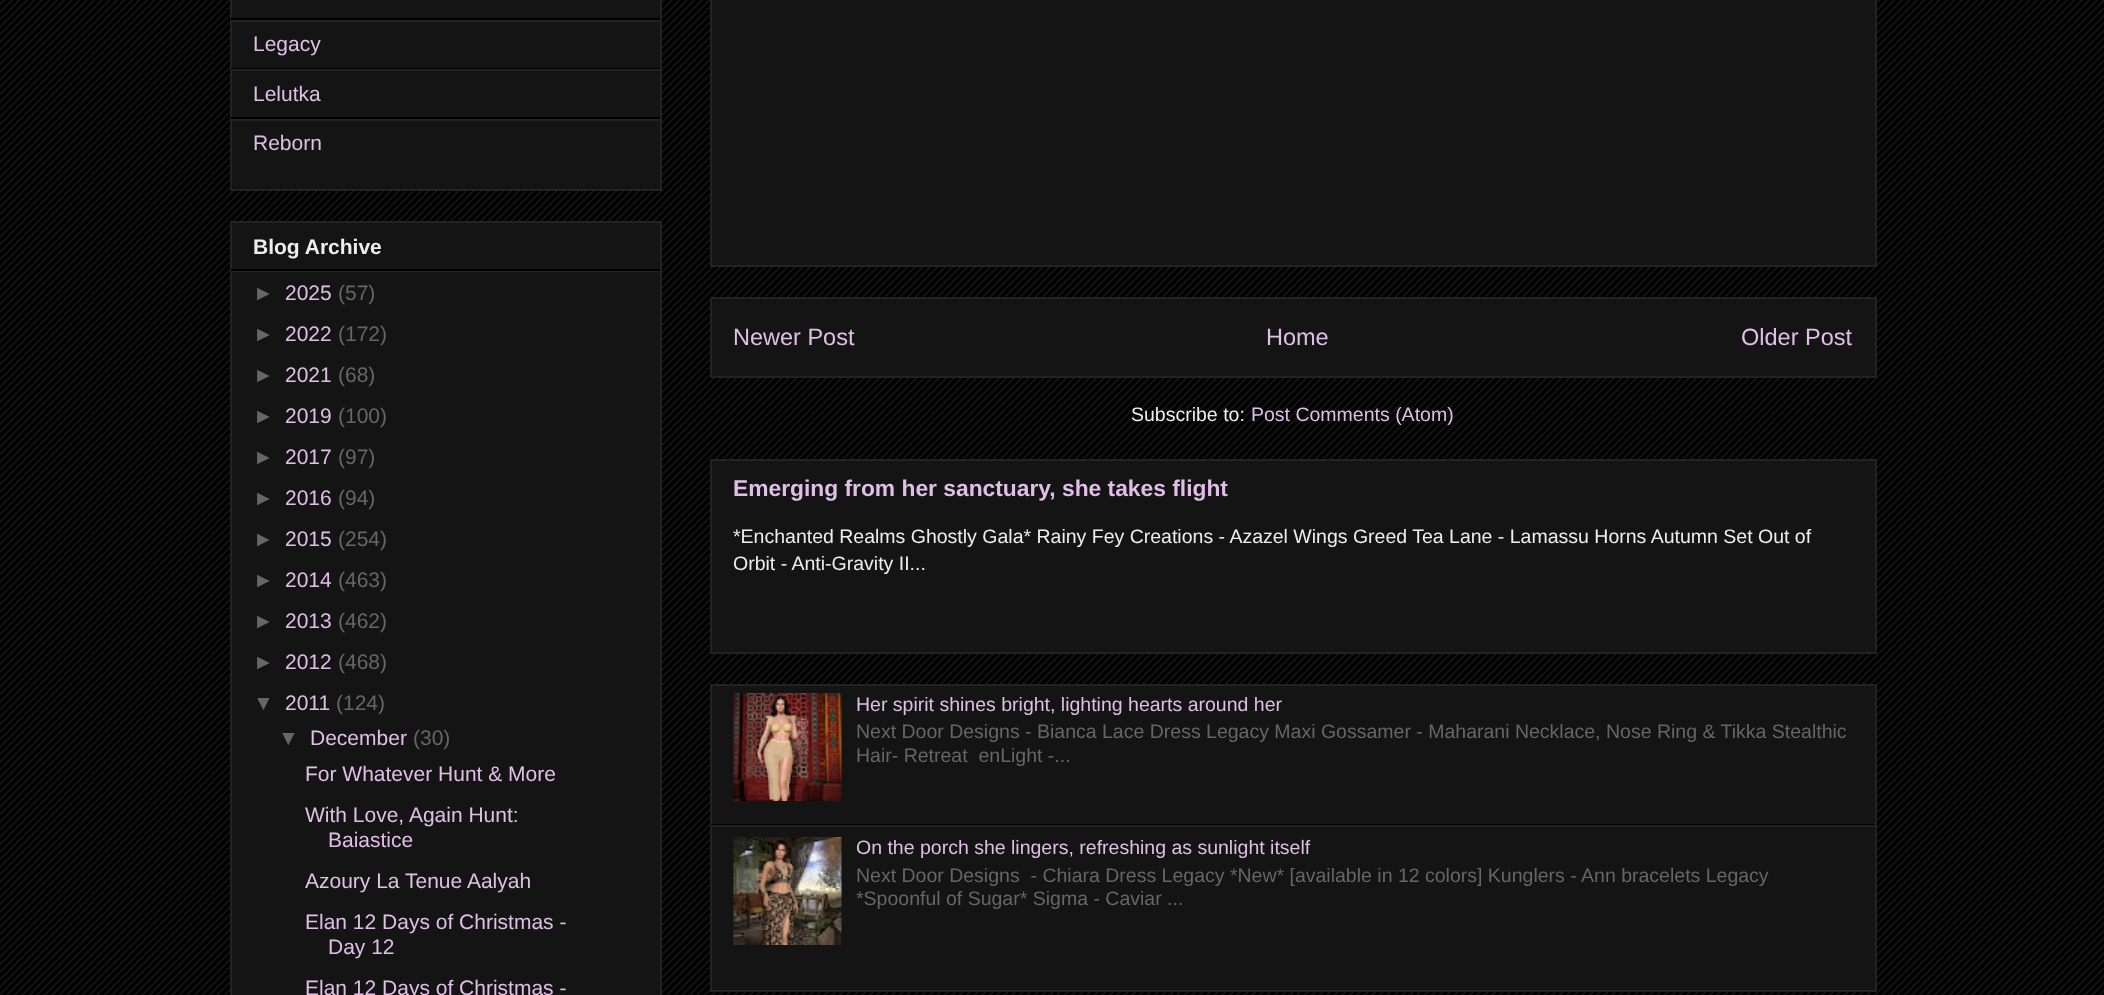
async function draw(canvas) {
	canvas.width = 2104;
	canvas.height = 995;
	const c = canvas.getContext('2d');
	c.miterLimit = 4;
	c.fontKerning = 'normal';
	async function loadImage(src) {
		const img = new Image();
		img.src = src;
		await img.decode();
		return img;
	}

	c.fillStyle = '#000';
	c.fillRect(0, 0, 2104, 995);
	c.drawImage(await loadImage('img1.png'), 0, 0, 2104, 995);
	c.fillStyle = '#141414';
	c.beginPath();
	c.rect(231, -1, 430, 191);
	c.fill();
	c.strokeStyle = '#222';
	c.lineWidth = 2;
	c.stroke();
	for (const [x, y, w, h, color] of [
		[231, 18, 429, 2, '#000'],
		[231, 20, 429, 2, '#222'],
		[231, 68, 429, 1, '#000'],
	]) {
		c.fillStyle = color;
		c.fillRect(x, y, w, h);
	}
	c.font = '21px Liberation Sans';
	c.fillStyle = '#e1bee7';
	c.fillText('Legacy', 253, 51);
	c.fillStyle = '#222';
	c.fillRect(231, 69, 429, 2);
	c.fillStyle = '#000';
	c.fillRect(231, 117, 429, 2);
	c.fillStyle = '#e1bee7';
	c.fillText('Lelutka', 253, 101);
	c.fillStyle = '#222';
	c.fillRect(231, 119, 429, 2);
	c.fillStyle = '#e1bee7';
	c.fillText('Reborn', 253, 150);
	c.fillStyle = '#141414';
	c.beginPath();
	c.rect(231, 222, 430, 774);
	c.fill();
	c.stroke();
	c.fillStyle = '#000';
	c.fillRect(231, 269, 429, 2);
	c.font = 'bold 21px Liberation Sans';
	c.fillStyle = '#eee';
	c.fillText('Blog Archive', 253, 254);
	c.fillStyle = '#222';
	c.fillRect(231, 271, 429, 1);
	c.font = '21px Liberation Sans';
	c.fillStyle = '#666';
	c.fillText('►', 253, 300);
	c.fillStyle = '#e1bee7';
	c.fillText('2025', 285, 300);
	c.fillStyle = '#666';
	c.fillText('(57)', 338, 300);
	c.fillText('►', 253, 341);
	c.fillStyle = '#e1bee7';
	c.fillText('2022', 285, 341);
	c.fillStyle = '#666';
	c.fillText('(172)', 338, 341);
	c.fillText('►', 253, 382);
	c.fillStyle = '#e1bee7';
	c.fillText('2021', 285, 382);
	c.fillStyle = '#666';
	c.fillText('(68)', 338, 382);
	c.fillText('►', 253, 423);
	c.fillStyle = '#e1bee7';
	c.fillText('2019', 285, 423);
	c.fillStyle = '#666';
	c.fillText('(100)', 338, 423);
	c.fillText('►', 253, 464);
	c.fillStyle = '#e1bee7';
	c.fillText('2017', 285, 464);
	c.fillStyle = '#666';
	c.fillText('(97)', 338, 464);
	c.fillText('►', 253, 505);
	c.fillStyle = '#e1bee7';
	c.fillText('2016', 285, 505);
	c.fillStyle = '#666';
	c.fillText('(94)', 338, 505);
	c.fillText('►', 253, 546);
	c.fillStyle = '#e1bee7';
	c.fillText('2015', 285, 546);
	c.fillStyle = '#666';
	c.fillText('(254)', 338, 546);
	c.fillText('►', 253, 587);
	c.fillStyle = '#e1bee7';
	c.fillText('2014', 285, 587);
	c.fillStyle = '#666';
	c.fillText('(463)', 338, 587);
	c.fillText('►', 253, 628);
	c.fillStyle = '#e1bee7';
	c.fillText('2013', 285, 628);
	c.fillStyle = '#666';
	c.fillText('(462)', 338, 628);
	c.fillText('►', 253, 669);
	c.fillStyle = '#e1bee7';
	c.fillText('2012', 285, 669);
	c.fillStyle = '#666';
	c.fillText('(468)', 338, 669);
	c.fillText('▼', 253, 710);
	c.fillStyle = '#e1bee7';
	c.fillText('2011', 285, 710);
	c.fillStyle = '#666';
	c.fillText('(124)', 336, 710);
	c.fillText('▼', 278, 745);
	c.fillStyle = '#e1bee7';
	c.fillText('December', 310, 745);
	c.fillStyle = '#666';
	c.fillText('(30)', 413, 745);
	c.fillStyle = '#e1bee7';
	for (const [text, x, y] of [
		['For Whatever Hunt & More', 305, 781],
		['With Love, Again Hunt:', 305, 822],
		['Baiastice', 328, 847],
		['Azoury La Tenue Aalyah', 305, 888],
		['Elan 12 Days of Christmas -', 305, 929],
		['Day 12', 328, 954],
		['Elan 12 Days of Christmas -', 305, 995],
	]) {
		c.fillText(text, x, y);
	}
	c.fillStyle = '#141414';
	c.beginPath();
	c.rect(711, -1, 1165, 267);
	c.fill();
	c.stroke();
	c.beginPath();
	c.rect(711, 298, 1165, 79);
	c.fill();
	c.stroke();
	c.font = '23.5px Liberation Sans';
	c.fillStyle = '#e1bee7';
	for (const [text, x, y] of [
		['Newer Post', 733, 345],
		['Home', 1266, 345],
		['Older Post', 1741, 345],
	]) {
		c.fillText(text, x, y);
	}
	c.font = '19.5px Liberation Sans';
	c.fillStyle = '#eee';
	c.fillText('Subscribe to:', 1131, 421);
	c.fillStyle = '#e1bee7';
	c.fillText('Post Comments (Atom)', 1251, 421);
	c.fillStyle = '#141414';
	c.beginPath();
	c.rect(711, 460, 1165, 193);
	c.fill();
	c.stroke();
	c.font = 'bold 22.8px Liberation Sans';
	c.fillStyle = '#e1bee7';
	c.fillText('Emerging from her sanctuary, she takes flight', 733, 496);
	c.font = '19.5px Liberation Sans';
	c.fillStyle = '#eee';
	c.fillText('*Enchanted Realms Ghostly Gala* Rainy Fey Creations - Azazel Wings Greed Tea Lane - Lamassu Horns Autumn Set Out of', 733, 543);
	c.fillText('Orbit - Anti-Gravity II...', 733, 570);
	c.fillStyle = '#141414';
	c.beginPath();
	c.rect(711, 685, 1165, 306);
	c.fill();
	c.stroke();
	c.fillStyle = '#000';
	c.fillRect(711, 824, 1164, 1);
	c.drawImage(await loadImage('img2.png'), 733, 693, 109, 108);
	c.fillStyle = '#e1bee7';
	c.fillText('Her spirit shines bright, lighting hearts around her', 856, 711);
	c.fillStyle = '#666';
	c.fillText('Next Door Designs - Bianca Lace Dress Legacy Maxi Gossamer - Maharani Necklace, Nose Ring & Tikka Stealthic', 856, 738);
	c.fillText('Hair- Retreat  enLight -...', 856, 762);
	c.fillStyle = '#222';
	c.fillRect(711, 825, 1164, 2);
	c.drawImage(await loadImage('img3.png'), 733, 837, 109, 108);
	c.fillStyle = '#e1bee7';
	c.fillText('On the porch she lingers, refreshing as sunlight itself', 856, 854);
	c.fillStyle = '#666';
	c.fillText('Next Door Designs  - Chiara Dress Legacy *New* [available in 12 colors] Kunglers - Ann bracelets Legacy', 856, 882);
	c.fillText('*Spoonful of Sugar* Sigma - Caviar ...', 856, 905);
}

draw(document.querySelector('canvas'));
